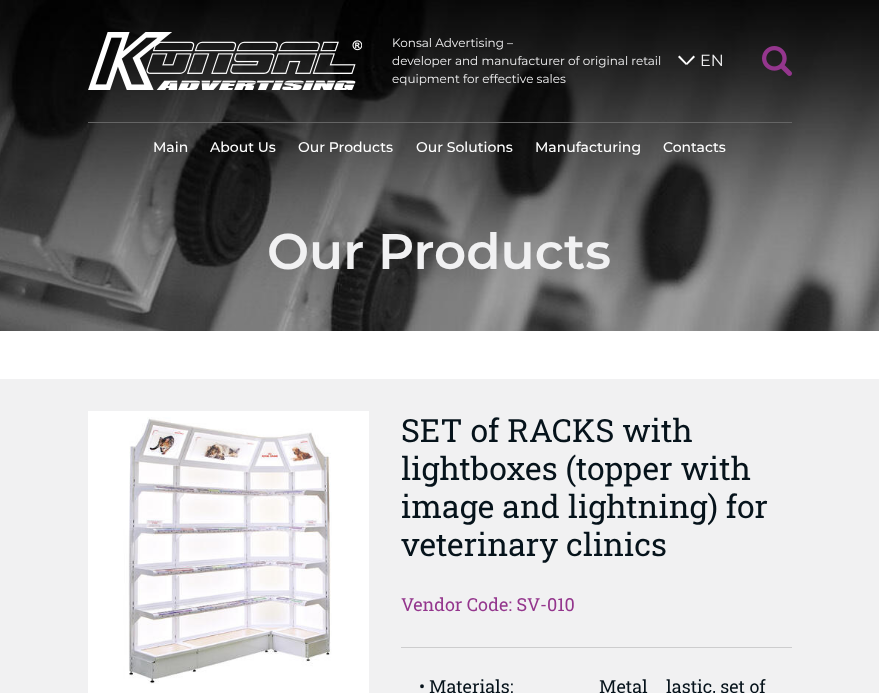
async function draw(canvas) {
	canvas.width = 879;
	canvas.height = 693;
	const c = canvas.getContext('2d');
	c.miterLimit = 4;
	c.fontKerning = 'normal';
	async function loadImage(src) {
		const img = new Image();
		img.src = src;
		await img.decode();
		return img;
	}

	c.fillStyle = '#f1f1f2';
	c.fillRect(0, 0, 879, 693);
	c.drawImage(await loadImage('img1.png'), 0, 0, 879, 331);
	c.drawImage(await loadImage('img2.png'), 88, 32, 274, 58);
	c.font = '12px Montserrat';
	for (const [text, x, y] of [
		['Konsal Advertising –', 392, 47],
		['developer and manufacturer of original retail', 392, 65],
		['equipment for effective sales', 392, 83],
	]) {
		c.fillText(text, x, y);
	}
	c.fillStyle = '#fff';
	c.beginPath();
	c.moveTo(679.5, 55.5);
	c.lineTo(687, 63.5);
	c.lineTo(686, 65);
	c.lineTo(678, 57);
	c.closePath();
	c.fill();
	c.beginPath();
	c.moveTo(686, 63.5);
	c.lineTo(693.5, 55.5);
	c.lineTo(695, 57);
	c.lineTo(687, 65);
	c.closePath();
	c.fill();
	c.font = '16px Montserrat';
	c.fillStyle = '#f1f1f2';
	c.fillText('EN', 700, 66);
	c.drawImage(await loadImage('img3.png'), 762, 46, 30, 30);
	c.fillStyle = '#656565';
	c.fillRect(88, 122, 564, 1);
	c.font = '500 14px Montserrat';
	c.fillStyle = '#fff';
	for (const [text, x, y] of [
		['Main', 153, 152],
		['About Us', 210, 152],
		['Our Products', 298, 152],
		['Our Solutions', 416, 152],
		['Manufacturing', 535, 152],
	]) {
		c.fillText(text, x, y);
	}
	c.fillStyle = '#656565';
	c.fillRect(652, 122, 140, 1);
	c.fillStyle = '#fff';
	c.fillText('Contacts', 663, 152);
	c.font = '600 50px Montserrat';
	c.fillStyle = '#f1f1f2';
	c.fillText('Our Products', 267, 269);
	c.fillStyle = '#fff';
	c.fillRect(0, 331, 879, 48);
	c.drawImage(await loadImage('img4.png'), 88, 411, 281, 282);
	c.fillStyle = '#cdcdce';
	c.fillRect(401, 647, 391, 1);
	c.font = '32px Roboto Slab';
	c.fillStyle = '#06131b';
	for (const [text, x, y] of [
		['SET of RACKS with', 401, 442],
		['lightboxes (topper with', 401, 480],
		['image and lightning) for', 401, 518],
		['veterinary clinics', 401, 556],
	]) {
		c.fillText(text, x, y);
	}
	c.font = '18px Roboto Slab';
	c.fillStyle = '#94368d';
	c.fillText('Vendor Code: SV-010', 401, 611);
	c.fillStyle = '#06131b';
	for (const [text, x, y] of [
		['•', 419, 693],
		['Materials:', 429, 693],
		['Metal', 599, 693],
		['lastic, set of', 666, 693],
	]) {
		c.fillText(text, x, y);
	}
}

draw(document.querySelector('canvas'));
